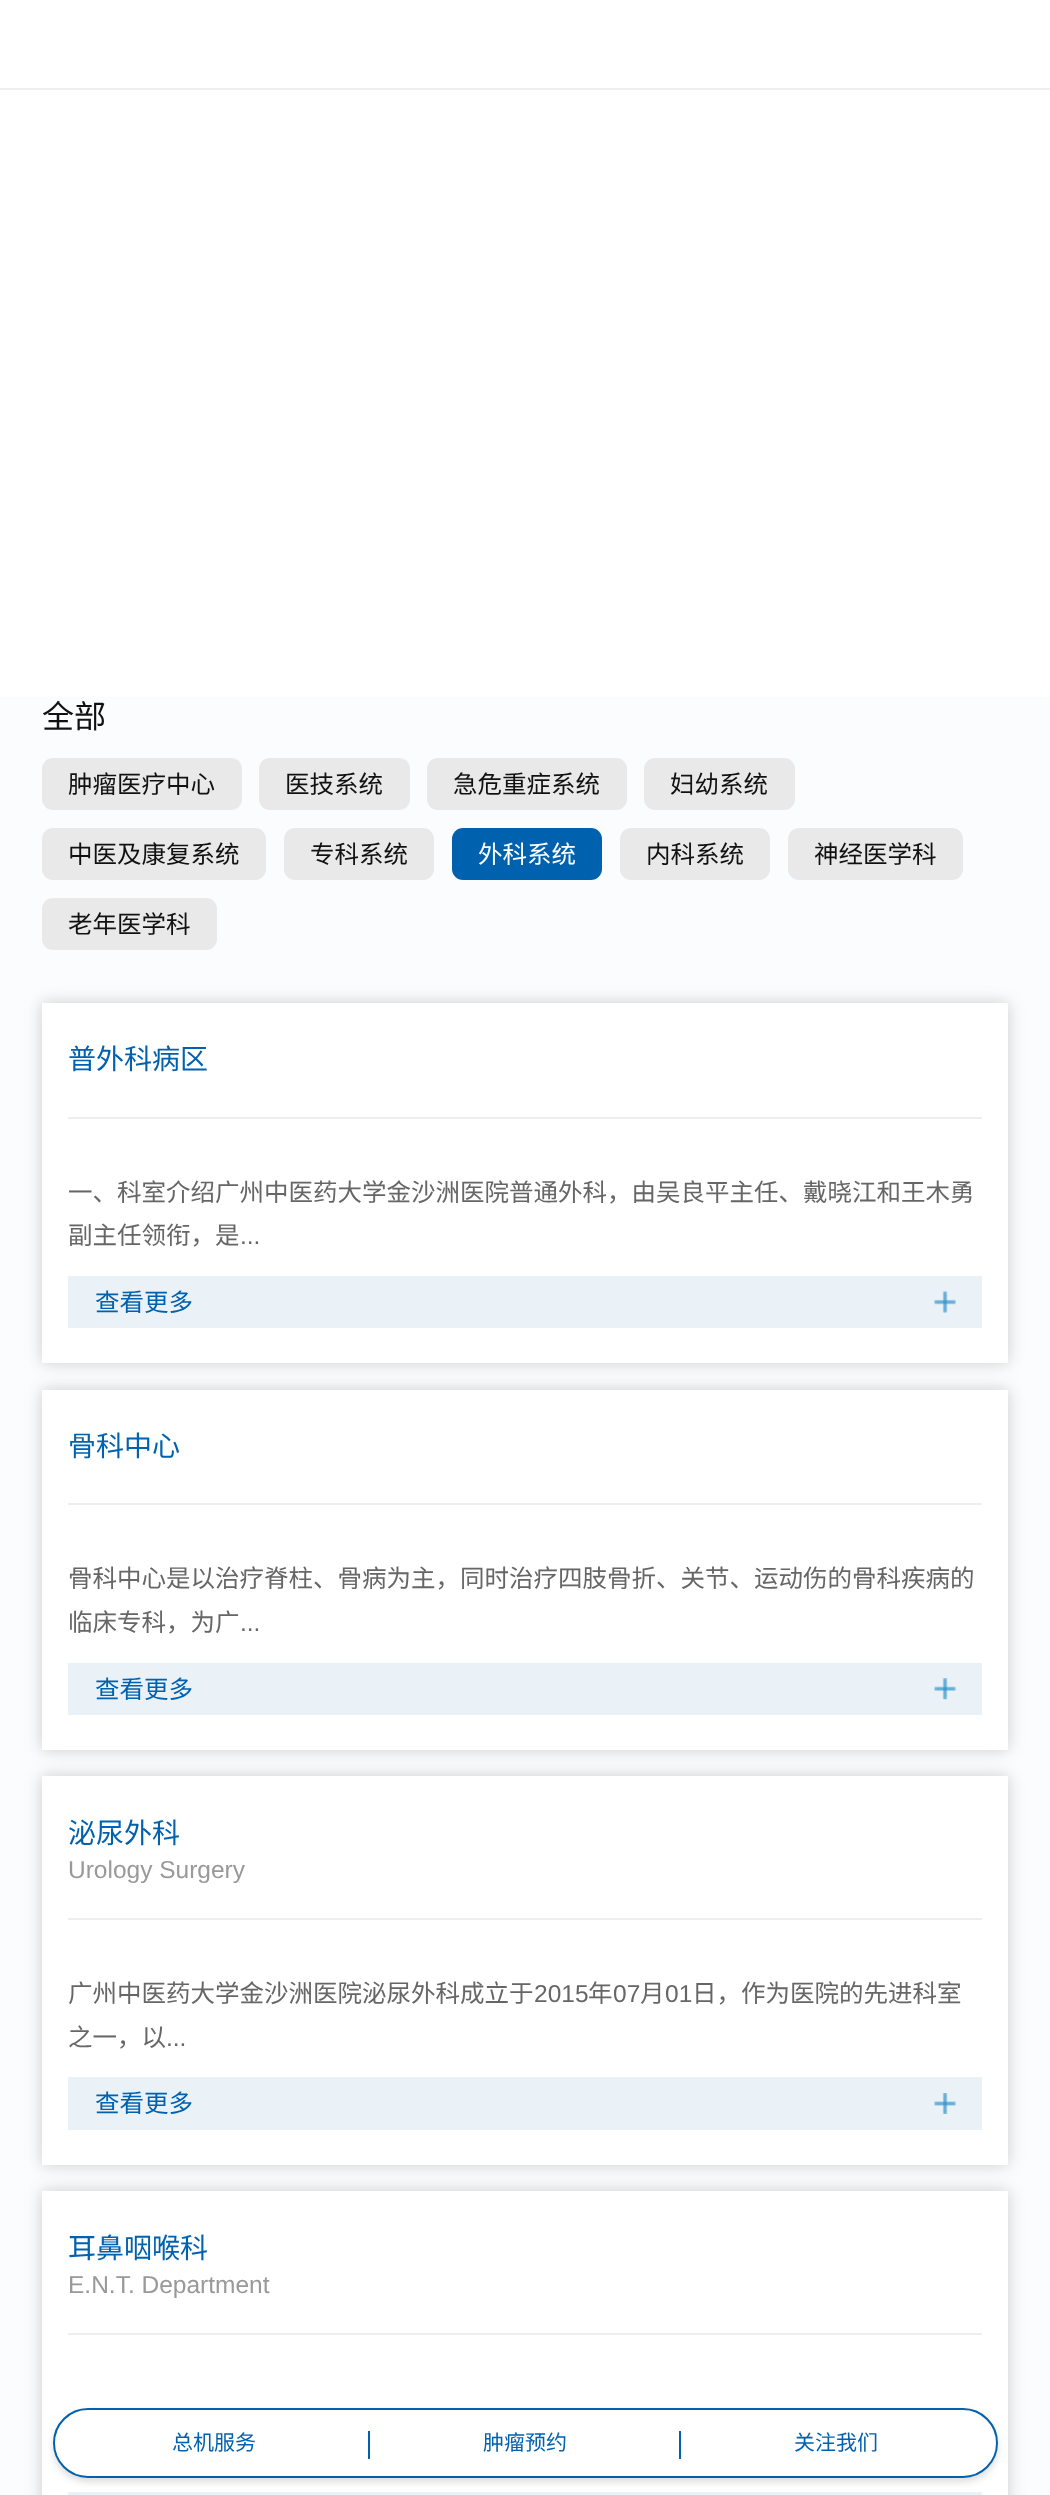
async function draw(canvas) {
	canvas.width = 1050;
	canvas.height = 2495;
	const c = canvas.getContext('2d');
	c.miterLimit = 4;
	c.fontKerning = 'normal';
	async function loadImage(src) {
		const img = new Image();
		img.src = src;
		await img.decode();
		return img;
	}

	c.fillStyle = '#fff';
	c.fillRect(0, 0, 1050, 2495);
	c.fillStyle = '#eee';
	c.fillRect(0, 88, 1050, 2);
	c.fillStyle = '#fafcfd';
	c.fillRect(0, 697, 1050, 1798);
	c.font = '32px Noto Sans CJK SC';
	c.fillStyle = '#111';
	c.fillText('全部', 42, 728);
	c.fillStyle = '#e9e9e9';
	c.beginPath();
	c.roundRect(42, 758, 200, 52, 11);
	c.fill();
	c.font = '24.5px Noto Sans CJK SC';
	c.fillStyle = '#111';
	c.fillText('肿瘤医疗中心', 68, 793);
	c.fillStyle = '#e9e9e9';
	c.beginPath();
	c.roundRect(259, 758, 151, 52, 11);
	c.fill();
	c.fillStyle = '#111';
	c.fillText('医技系统', 285, 793);
	c.fillStyle = '#e9e9e9';
	c.beginPath();
	c.roundRect(427, 758, 200, 52, 11);
	c.fill();
	c.fillStyle = '#111';
	c.fillText('急危重症系统', 453, 793);
	c.fillStyle = '#e9e9e9';
	c.beginPath();
	c.roundRect(644, 758, 151, 52, 11);
	c.fill();
	c.fillStyle = '#111';
	c.fillText('妇幼系统', 670, 793);
	c.fillStyle = '#e9e9e9';
	c.beginPath();
	c.roundRect(42, 828, 224, 52, 11);
	c.fill();
	c.fillStyle = '#111';
	c.fillText('中医及康复系统', 68, 863);
	c.fillStyle = '#e9e9e9';
	c.beginPath();
	c.roundRect(284, 828, 150, 52, 11);
	c.fill();
	c.fillStyle = '#111';
	c.fillText('专科系统', 310, 863);
	c.fillStyle = '#0061ae';
	c.beginPath();
	c.roundRect(452, 828, 150, 52, 11);
	c.fill();
	c.fillStyle = '#fff';
	c.fillText('外科系统', 478, 863);
	c.fillStyle = '#e9e9e9';
	c.beginPath();
	c.roundRect(620, 828, 150, 52, 11);
	c.fill();
	c.fillStyle = '#111';
	c.fillText('内科系统', 646, 863);
	c.fillStyle = '#e9e9e9';
	c.beginPath();
	c.roundRect(788, 828, 175, 52, 11);
	c.fill();
	c.fillStyle = '#111';
	c.fillText('神经医学科', 814, 863);
	c.fillStyle = '#e9e9e9';
	c.beginPath();
	c.roundRect(42, 898, 175, 52, 11);
	c.fill();
	c.fillStyle = '#111';
	c.fillText('老年医学科', 68, 933);
	c.fillStyle = '#cdcdcd';
	c.filter = 'blur(8px)';
	c.beginPath();
	c.rect(42, 1003, 966, 360);
	c.fill();
	c.filter = 'none';
	c.fillStyle = '#fff';
	c.fillRect(42, 1003, 966, 360);
	c.fillStyle = '#eee';
	c.fillRect(68, 1117, 914, 2);
	c.font = '28px Noto Sans CJK SC';
	c.fillStyle = '#0061ae';
	c.fillText('普外科病区', 68, 1069);
	c.font = '24.5px Noto Sans CJK SC';
	c.fillStyle = '#666';
	c.fillText('一、科室介绍广州中医药大学金沙洲医院普通外科，由吴良平主任、戴晓江和王木勇', 68, 1201);
	c.fillText('副主任领衔，是', 68, 1244);
	c.font = '24.5px Liberation Sans';
	c.fillText('...', 240, 1244);
	c.fillStyle = '#eaf2f8';
	c.fillRect(68, 1276, 914, 52);
	c.drawImage(await loadImage('img1.png'), 934, 1291, 22, 22);
	c.font = '24.5px Noto Sans CJK SC';
	c.fillStyle = '#0061ae';
	c.fillText('查看更多', 95, 1311);
	c.fillStyle = '#cdcdcd';
	c.filter = 'blur(8px)';
	c.beginPath();
	c.rect(42, 1390, 966, 360);
	c.fill();
	c.filter = 'none';
	c.fillStyle = '#fff';
	c.fillRect(42, 1390, 966, 360);
	c.fillStyle = '#eee';
	c.fillRect(68, 1503, 914, 2);
	c.font = '28px Noto Sans CJK SC';
	c.fillStyle = '#0061ae';
	c.fillText('骨科中心', 68, 1456);
	c.font = '24.5px Noto Sans CJK SC';
	c.fillStyle = '#666';
	c.fillText('骨科中心是以治疗脊柱、骨病为主，同时治疗四肢骨折、关节、运动伤的骨科疾病的', 68, 1587);
	c.fillText('临床专科，为广', 68, 1631);
	c.font = '24.5px Liberation Sans';
	c.fillText('...', 240, 1631);
	c.fillStyle = '#eaf2f8';
	c.fillRect(68, 1663, 914, 52);
	c.drawImage(await loadImage('img2.png'), 934, 1678, 22, 22);
	c.font = '24.5px Noto Sans CJK SC';
	c.fillStyle = '#0061ae';
	c.fillText('查看更多', 95, 1698);
	c.fillStyle = '#cdcdcd';
	c.filter = 'blur(8px)';
	c.beginPath();
	c.rect(42, 1776, 966, 389);
	c.fill();
	c.filter = 'none';
	c.fillStyle = '#fff';
	c.fillRect(42, 1776, 966, 389);
	c.fillStyle = '#eee';
	c.fillRect(68, 1918, 914, 2);
	c.font = '28px Noto Sans CJK SC';
	c.fillStyle = '#0061ae';
	c.fillText('泌尿外科', 68, 1843);
	c.font = '24.5px Liberation Sans';
	c.fillStyle = '#999';
	c.fillText('Urology Surgery', 68, 1878);
	c.font = '24.5px Noto Sans CJK SC';
	c.fillStyle = '#666';
	c.fillText('广州中医药大学金沙洲医院泌尿外科成立于', 68, 2002);
	c.font = '24.5px Liberation Sans';
	c.fillText('2015', 534, 2002);
	c.font = '24.5px Noto Sans CJK SC';
	c.fillText('年', 588, 2002);
	c.font = '24.5px Liberation Sans';
	c.fillText('07', 613, 2002);
	c.font = '24.5px Noto Sans CJK SC';
	c.fillText('月', 640, 2002);
	c.font = '24.5px Liberation Sans';
	c.fillText('01', 665, 2002);
	c.font = '24.5px Noto Sans CJK SC';
	c.fillText('日，作为医院的先进科室', 692, 2002);
	c.fillText('之一，以', 68, 2046);
	c.font = '24.5px Liberation Sans';
	c.fillText('...', 166, 2046);
	c.fillStyle = '#eaf2f8';
	c.fillRect(68, 2077, 914, 53);
	c.drawImage(await loadImage('img3.png'), 934, 2093, 22, 21);
	c.font = '24.5px Noto Sans CJK SC';
	c.fillStyle = '#0061ae';
	c.fillText('查看更多', 95, 2112);
	c.fillStyle = '#cdcdcd';
	c.filter = 'blur(8px)';
	c.beginPath();
	c.rect(42, 2191, 966, 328);
	c.fill();
	c.filter = 'none';
	c.fillStyle = '#fff';
	c.fillRect(42, 2191, 966, 304);
	c.fillStyle = '#eee';
	c.fillRect(68, 2333, 914, 2);
	c.font = '28px Noto Sans CJK SC';
	c.fillStyle = '#0061ae';
	c.fillText('耳鼻咽喉科', 68, 2258);
	c.font = '24.5px Liberation Sans';
	c.fillStyle = '#999';
	c.fillText('E.N.T. Department', 68, 2293);
	c.fillStyle = '#eaf2f8';
	c.fillRect(68, 2492, 914, 3);
	c.fillStyle = '#ddd';
	c.filter = 'blur(3.5px)';
	c.beginPath();
	c.roundRect(53, 2412, 945, 70, 35);
	c.fill();
	c.filter = 'none';
	c.fillStyle = '#fff';
	c.beginPath();
	c.roundRect(54, 2409, 943, 68, 34);
	c.fill();
	c.strokeStyle = '#0061ae';
	c.lineWidth = 2;
	c.stroke();
	c.font = '21px Noto Sans CJK SC';
	c.fillStyle = '#0061ae';
	c.fillText('总机服务', 172, 2450);
	c.fillRect(368, 2431, 2, 28);
	c.fillText('肿瘤预约', 483, 2450);
	c.fillRect(679, 2431, 2, 28);
	c.fillText('关注我们', 794, 2450);
}

draw(document.querySelector('canvas'));
